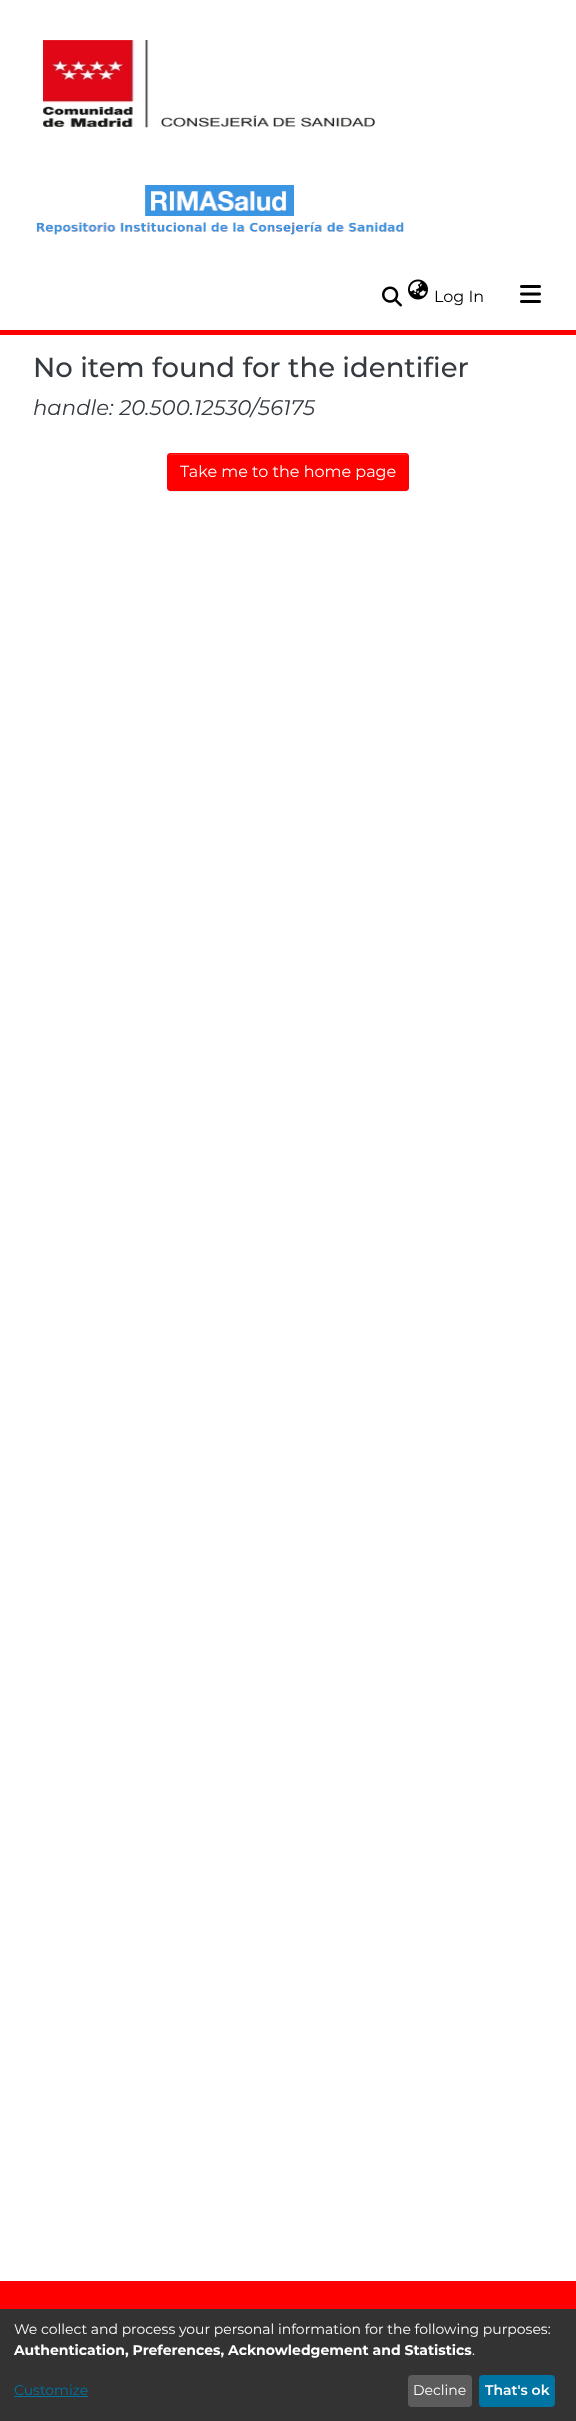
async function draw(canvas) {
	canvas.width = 576;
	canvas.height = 2421;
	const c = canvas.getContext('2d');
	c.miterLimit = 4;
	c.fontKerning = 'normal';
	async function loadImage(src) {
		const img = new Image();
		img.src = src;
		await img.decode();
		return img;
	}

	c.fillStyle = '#fff';
	c.fillRect(0, 0, 576, 2421);
	c.fillStyle = '#f00';
	c.fillRect(0, 330, 576, 5);
	c.drawImage(await loadImage('img1.png'), 43, 40, 332, 88);
	c.drawImage(await loadImage('img2.png'), 36, 185, 368, 50);
	c.drawImage(await loadImage('img3.png'), 382, 286, 20, 21);
	c.drawImage(await loadImage('img4.png'), 408, 279, 20, 21);
	c.font = '16px Montserrat';
	c.fillStyle = '#000';
	c.fillText('Log In', 434, 302);
	c.drawImage(await loadImage('img5.png'), 520, 285, 21, 18);
	c.font = '500 27.5px Montserrat';
	c.fillStyle = '#343a40';
	c.fillText('No item found for the identifier', 33, 377);
	c.font = 'italic 21.25px Montserrat';
	c.fillText('handle: 20.500.12530/56175', 33, 415);
	c.fillStyle = '#00000012';
	c.filter = 'blur(0.5px)';
	c.beginPath();
	c.roundRect(167, 454, 242, 38, 4);
	c.fill();
	c.filter = 'none';
	c.fillStyle = '#f00';
	c.beginPath();
	c.roundRect(167, 453, 242, 38, 4);
	c.fill();
	c.fillStyle = '#ff2626';
	c.beginPath();
	c.moveTo(171, 455);
	c.lineTo(406, 455);
	c.lineTo(408, 456);
	c.lineTo(408, 458);
	c.bezierCurveTo(408, 456, 407, 454, 405, 454);
	c.lineTo(171, 454);
	c.bezierCurveTo(169, 454, 168, 456, 168, 458);
	c.bezierCurveTo(168, 456, 169, 455, 171, 455);
	c.closePath();
	c.fill();
	c.beginPath();
	c.roundRect(167.5, 453.5, 241, 37, 3.5);
	c.strokeStyle = '#f00';
	c.stroke();
	c.font = '16px Montserrat';
	c.fillStyle = '#fff';
	c.fillText('Take me to the home page', 180, 477);
	c.fillStyle = '#f00';
	c.fillRect(0, 2281, 576, 28);
	c.fillStyle = '#333';
	c.fillRect(0, 2309, 576, 112);
	c.font = '14px Montserrat';
	c.fillStyle = '#fff';
	c.fillText('We collect and process your personal information for the following purposes:', 14, 2334);
	c.font = 'bold 14px Montserrat';
	c.fillText('Authentication, Preferences, Acknowledgement and Statistics', 14, 2355);
	c.font = '14px Montserrat';
	c.fillText('.', 472, 2355);
	c.fillStyle = '#0074a3';
	c.fillText('Customize', 14, 2395);
	c.fillRect(14, 2396, 74, 1);
	c.fillStyle = '#5c5c5c';
	c.beginPath();
	c.roundRect(408, 2375, 64, 32, 4);
	c.fill();
	c.fillStyle = '#fff';
	c.fillText('Decline', 413, 2395);
	c.fillStyle = '#0074a3';
	c.beginPath();
	c.roundRect(479, 2375, 76, 32, 4);
	c.fill();
	c.font = '600 14px Montserrat';
	c.fillStyle = '#fff';
	c.fillText('That\'s ok', 485, 2395);
}

draw(document.querySelector('canvas'));
